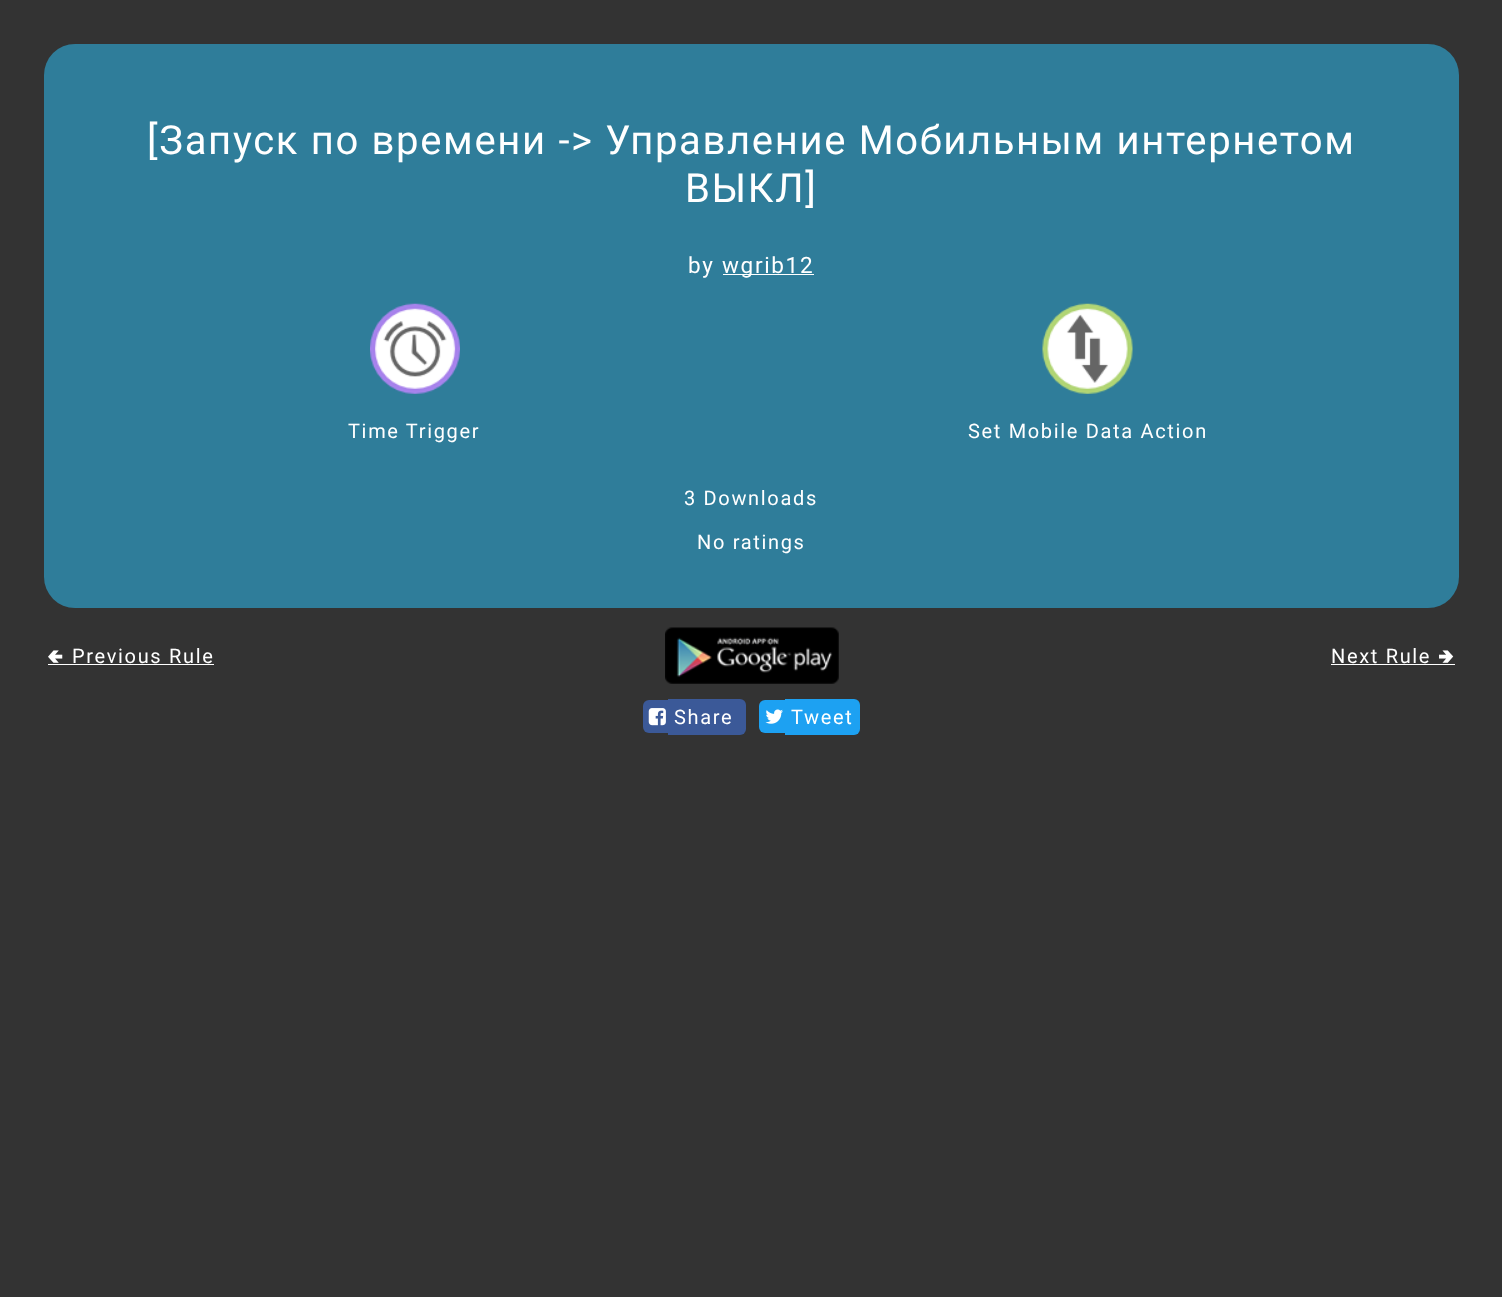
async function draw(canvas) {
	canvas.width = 1502;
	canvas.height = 1297;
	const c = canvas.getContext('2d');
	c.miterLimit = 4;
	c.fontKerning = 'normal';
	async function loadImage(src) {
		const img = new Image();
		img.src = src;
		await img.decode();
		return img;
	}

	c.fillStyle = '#333';
	c.fillRect(0, 0, 1502, 1297);
	c.fillStyle = '#2f7d9a';
	c.beginPath();
	c.roundRect(44, 44, 1415, 564, 31);
	c.fill();
	c.letterSpacing = '1.67px';
	c.font = '40px Roboto';
	c.fillStyle = '#fff';
	c.fillText('[Запуск по времени -> Управление Мобильным интернетом', 147, 154);
	c.fillText('ВЫКЛ]', 685, 202);
	c.font = '22.5px Roboto';
	c.fillText('by', 688, 273);
	c.fillRect(723, 274, 91, 1);
	c.fillText('wgrib12', 722, 273);
	c.drawImage(await loadImage('img1.png'), 370, 303, 90, 91);
	c.font = '20px Roboto';
	c.fillText('Time Trigger', 348, 438);
	c.drawImage(await loadImage('img2.png'), 1042, 303, 91, 91);
	for (const [text, x, y] of [
		['Set Mobile Data Action', 968, 438],
		['3 Downloads', 684, 505],
		['No ratings', 697, 549],
	]) {
		c.fillText(text, x, y);
	}
	c.font = '20px "Noto Sans Symbols 2"';
	c.fillText('🢀', 47, 663);
	c.fillRect(48, 664, 166, 1);
	c.font = '20px Roboto';
	c.fillText('Previous Rule', 72, 663);
	c.drawImage(await loadImage('img3.png'), 665, 627, 174, 57);
	c.fillText('Next Rule', 1331, 663);
	c.font = '20px "Noto Sans Symbols 2"';
	c.fillText('🢂', 1438, 663);
	c.fillRect(1331, 664, 124, 1);
	c.fillStyle = '#3b5998';
	c.beginPath();
	c.roundRect(643, 700, 25, 33, [6, 0, 0, 6]);
	c.fill();
	c.beginPath();
	c.roundRect(668, 699, 78, 36, [0, 6, 6, 0]);
	c.fill();
	c.drawImage(await loadImage('img4.png'), 648, 708, 18, 18);
	c.font = '20px Roboto';
	c.fillStyle = '#fff';
	c.fillText('Share', 674, 724);
	c.fillStyle = '#1da1f2';
	c.beginPath();
	c.roundRect(759, 700, 26, 33, [6, 0, 0, 6]);
	c.fill();
	c.beginPath();
	c.roundRect(785, 699, 75, 36, [0, 6, 6, 0]);
	c.fill();
	c.drawImage(await loadImage('img5.png'), 765, 709, 18, 15);
	c.fillStyle = '#fff';
	c.fillText('Tweet', 791, 724);
}

draw(document.querySelector('canvas'));
